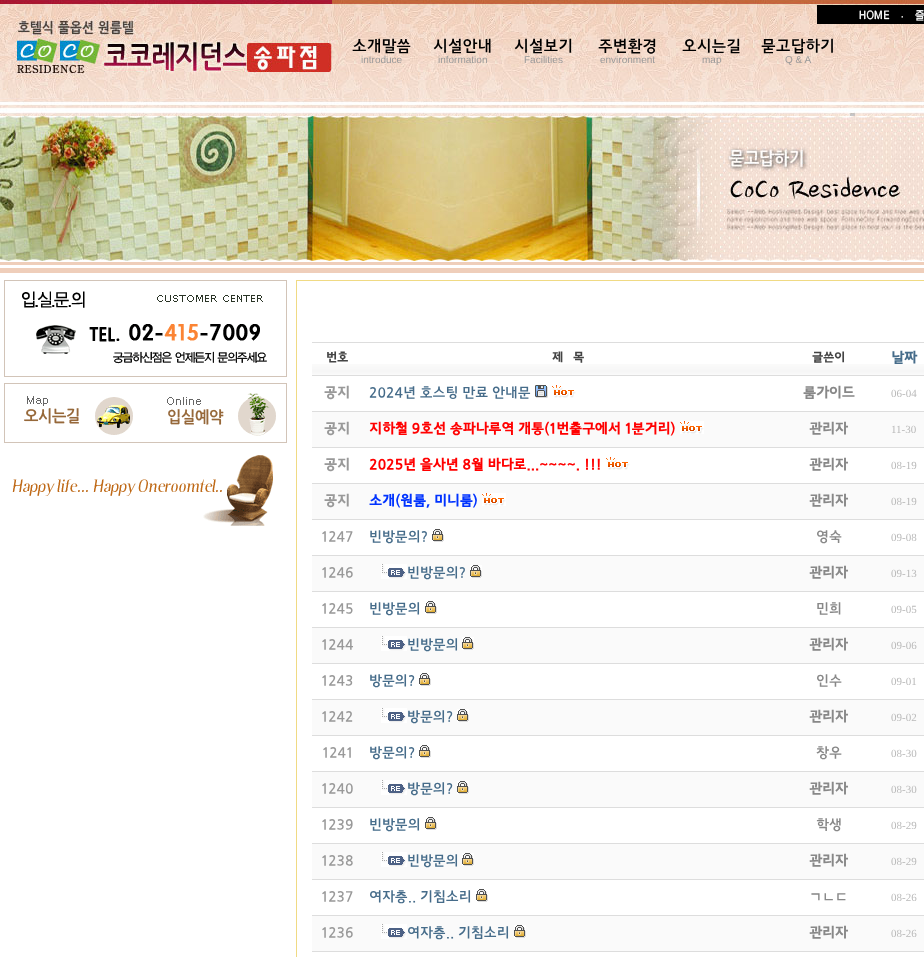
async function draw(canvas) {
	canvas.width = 924;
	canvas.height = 957;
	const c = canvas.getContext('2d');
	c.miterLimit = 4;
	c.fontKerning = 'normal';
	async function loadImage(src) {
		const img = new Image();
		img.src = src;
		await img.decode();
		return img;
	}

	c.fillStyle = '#fff';
	c.fillRect(0, 0, 924, 957);
	c.drawImage(await loadImage('img1.png'), 332, 0, 592, 90);
	c.drawImage(await loadImage('img2.png'), 0, 0, 332, 90);
	c.drawImage(await loadImage('img3.png'), 817, 5, 107, 19);
	c.font = '16px JejuGothic';
	c.fillStyle = '#000';
	c.fillText('소개말씀', 352, 51);
	c.font = '10px Liberation Sans';
	c.fillStyle = '#999';
	c.fillText('introduce', 361, 63);
	c.font = '16px JejuGothic';
	c.fillStyle = '#000';
	c.fillText('시설안내', 433, 51);
	c.font = '10px Liberation Sans';
	c.fillStyle = '#999';
	c.fillText('information', 438, 63);
	c.font = '16px JejuGothic';
	c.fillStyle = '#000';
	c.fillText('시설보기', 514, 51);
	c.font = '10px Liberation Sans';
	c.fillStyle = '#999';
	c.fillText('Facilities', 524, 63);
	c.font = '16px JejuGothic';
	c.fillStyle = '#000';
	c.fillText('주변환경', 598, 51);
	c.font = '10px Liberation Sans';
	c.fillStyle = '#999';
	c.fillText('environment', 600, 63);
	c.font = '16px JejuGothic';
	c.fillStyle = '#000';
	c.fillText('오시는길', 682, 51);
	c.font = '10px Liberation Sans';
	c.fillStyle = '#999';
	c.fillText('map', 702, 63);
	c.font = '16px JejuGothic';
	c.fillStyle = '#000';
	c.fillText('묻고답하기', 761, 51);
	c.font = '10px Liberation Sans';
	c.fillStyle = '#999';
	c.fillText('Q & A', 785, 63);
	c.drawImage(await loadImage('img4.png'), 0, 90, 924, 26);
	c.drawImage(await loadImage('img5.png'), 0, 116, 723, 145);
	c.drawImage(await loadImage('img6.png'), 723, 116, 201, 145);
	c.drawImage(await loadImage('img7.png'), 0, 261, 924, 12);
	c.drawImage(await loadImage('img8.png'), 4, 280, 283, 97);
	c.drawImage(await loadImage('img9.png'), 4, 383, 283, 143);
	c.strokeStyle = '#f0da84';
	c.strokeRect(296.5, 280.5, 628, 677);
	c.drawImage(await loadImage('img10.png'), 312, 364, 50, 11);
	c.fillStyle = '#ddd';
	c.fillRect(312, 342, 612, 1);
	c.fillRect(312, 375, 612, 1);
	c.font = 'bold 12px JejuGothic';
	c.fillStyle = '#444';
	c.fillText('번호', 326, 361);
	c.drawImage(await loadImage('img11.png'), 362, 364, 412, 11);
	c.fillText('제   목', 552, 361);
	c.drawImage(await loadImage('img12.png'), 774, 364, 110, 11);
	c.fillText('글쓴이', 812, 361);
	c.drawImage(await loadImage('img13.png'), 884, 364, 40, 11);
	c.font = 'bold 14px JejuGothic';
	c.fillStyle = '#466c8a';
	c.fillText('날짜', 891, 362);
	c.fillStyle = '#ddd';
	c.fillRect(312, 411, 50, 1);
	c.fillStyle = '#999';
	c.fillText('공지', 324, 397);
	c.font = '14px JejuGothic';
	c.fillStyle = '#466c8a';
	c.fillText('2024년 호스팅 만료 안내문', 369, 397);
	c.drawImage(await loadImage('img14.png'), 535, 385, 13, 13);
	c.drawImage(await loadImage('img15.png'), 552, 385, 24, 13);
	c.fillStyle = '#ddd';
	c.fillRect(362, 411, 562, 1);
	c.font = 'bold 14px JejuGothic';
	c.fillStyle = '#888';
	c.fillText('룸가이드', 803, 397);
	c.font = '11px Liberation Serif';
	c.fillStyle = '#bababa';
	c.fillText('06-04', 891, 397);
	c.fillStyle = '#fafafa';
	c.fillRect(312, 412, 612, 35);
	c.fillStyle = '#ddd';
	c.fillRect(312, 447, 50, 1);
	c.font = 'bold 14px JejuGothic';
	c.fillStyle = '#999';
	c.fillText('공지', 324, 433);
	c.fillStyle = '#f00';
	c.fillText('지하철 9호선 송파나루역 개통(1번출구에서 1분거리)', 369, 433);
	c.drawImage(await loadImage('img15.png'), 680, 421, 24, 13);
	c.fillStyle = '#ddd';
	c.fillRect(362, 447, 562, 1);
	c.fillStyle = '#888';
	c.fillText('관리자', 809, 433);
	c.font = '11px Liberation Serif';
	c.fillStyle = '#bababa';
	c.fillText('11-30', 891, 433);
	c.fillStyle = '#ddd';
	c.fillRect(312, 483, 50, 1);
	c.font = 'bold 14px JejuGothic';
	c.fillStyle = '#999';
	c.fillText('공지', 324, 469);
	c.fillStyle = '#f00';
	c.fillText('2025년 을사년 8월 바다로...~~~~. !!!', 369, 469);
	c.drawImage(await loadImage('img15.png'), 606, 457, 24, 13);
	c.fillStyle = '#ddd';
	c.fillRect(362, 483, 562, 1);
	c.fillStyle = '#888';
	c.fillText('관리자', 809, 469);
	c.font = '11px Liberation Serif';
	c.fillStyle = '#bababa';
	c.fillText('08-19', 891, 469);
	c.fillStyle = '#fafafa';
	c.fillRect(312, 484, 612, 35);
	c.fillStyle = '#ddd';
	c.fillRect(312, 519, 50, 1);
	c.font = 'bold 14px JejuGothic';
	c.fillStyle = '#999';
	c.fillText('공지', 324, 505);
	c.fillStyle = '#03f';
	c.fillText('소개(원룸, 미니룸)', 369, 505);
	c.drawImage(await loadImage('img15.png'), 482, 493, 24, 13);
	c.fillStyle = '#ddd';
	c.fillRect(362, 519, 562, 1);
	c.fillStyle = '#888';
	c.fillText('관리자', 809, 505);
	c.font = '11px Liberation Serif';
	c.fillStyle = '#bababa';
	c.fillText('08-19', 891, 505);
	c.fillStyle = '#ddd';
	c.fillRect(312, 555, 50, 1);
	c.font = '14px JejuGothic';
	c.fillStyle = '#999';
	c.fillText('1247', 321, 541);
	c.fillStyle = '#466c8a';
	c.fillText('빈방문의?', 369, 541);
	c.drawImage(await loadImage('img16.png'), 432, 529, 12, 13);
	c.fillStyle = '#ddd';
	c.fillRect(362, 555, 562, 1);
	c.fillStyle = '#888';
	c.fillText('영숙', 816, 541);
	c.font = '11px Liberation Serif';
	c.fillStyle = '#bababa';
	c.fillText('09-08', 891, 541);
	c.fillStyle = '#fafafa';
	c.fillRect(312, 556, 612, 35);
	c.fillStyle = '#ddd';
	c.fillRect(312, 591, 50, 1);
	c.font = '14px JejuGothic';
	c.fillStyle = '#999';
	c.fillText('1246', 321, 577);
	c.drawImage(await loadImage('img17.png'), 381, 564, 26, 15);
	c.fillStyle = '#466c8a';
	c.fillText('빈방문의?', 407, 577);
	c.drawImage(await loadImage('img16.png'), 470, 565, 12, 13);
	c.fillStyle = '#ddd';
	c.fillRect(362, 591, 562, 1);
	c.font = 'bold 14px JejuGothic';
	c.fillStyle = '#888';
	c.fillText('관리자', 809, 577);
	c.font = '11px Liberation Serif';
	c.fillStyle = '#bababa';
	c.fillText('09-13', 891, 577);
	c.fillStyle = '#ddd';
	c.fillRect(312, 627, 50, 1);
	c.font = '14px JejuGothic';
	c.fillStyle = '#999';
	c.fillText('1245', 321, 613);
	c.fillStyle = '#466c8a';
	c.fillText('빈방문의', 369, 613);
	c.drawImage(await loadImage('img16.png'), 425, 601, 12, 13);
	c.fillStyle = '#ddd';
	c.fillRect(362, 627, 562, 1);
	c.fillStyle = '#888';
	c.fillText('민희', 816, 613);
	c.font = '11px Liberation Serif';
	c.fillStyle = '#bababa';
	c.fillText('09-05', 891, 613);
	c.fillStyle = '#fafafa';
	c.fillRect(312, 628, 612, 35);
	c.fillStyle = '#ddd';
	c.fillRect(312, 663, 50, 1);
	c.font = '14px JejuGothic';
	c.fillStyle = '#999';
	c.fillText('1244', 321, 649);
	c.drawImage(await loadImage('img17.png'), 381, 636, 26, 15);
	c.fillStyle = '#466c8a';
	c.fillText('빈방문의', 407, 649);
	c.drawImage(await loadImage('img16.png'), 462, 637, 12, 13);
	c.fillStyle = '#ddd';
	c.fillRect(362, 663, 562, 1);
	c.font = 'bold 14px JejuGothic';
	c.fillStyle = '#888';
	c.fillText('관리자', 809, 649);
	c.font = '11px Liberation Serif';
	c.fillStyle = '#bababa';
	c.fillText('09-06', 891, 649);
	c.fillStyle = '#ddd';
	c.fillRect(312, 699, 50, 1);
	c.font = '14px JejuGothic';
	c.fillStyle = '#999';
	c.fillText('1243', 321, 685);
	c.fillStyle = '#466c8a';
	c.fillText('방문의?', 369, 685);
	c.drawImage(await loadImage('img16.png'), 419, 673, 12, 13);
	c.fillStyle = '#ddd';
	c.fillRect(362, 699, 562, 1);
	c.fillStyle = '#888';
	c.fillText('인수', 816, 685);
	c.font = '11px Liberation Serif';
	c.fillStyle = '#bababa';
	c.fillText('09-01', 891, 685);
	c.fillStyle = '#fafafa';
	c.fillRect(312, 700, 612, 35);
	c.fillStyle = '#ddd';
	c.fillRect(312, 735, 50, 1);
	c.font = '14px JejuGothic';
	c.fillStyle = '#999';
	c.fillText('1242', 321, 721);
	c.drawImage(await loadImage('img17.png'), 381, 708, 26, 15);
	c.fillStyle = '#466c8a';
	c.fillText('방문의?', 407, 721);
	c.drawImage(await loadImage('img16.png'), 457, 709, 12, 13);
	c.fillStyle = '#ddd';
	c.fillRect(362, 735, 562, 1);
	c.font = 'bold 14px JejuGothic';
	c.fillStyle = '#888';
	c.fillText('관리자', 809, 721);
	c.font = '11px Liberation Serif';
	c.fillStyle = '#bababa';
	c.fillText('09-02', 891, 721);
	c.fillStyle = '#ddd';
	c.fillRect(312, 771, 50, 1);
	c.font = '14px JejuGothic';
	c.fillStyle = '#999';
	c.fillText('1241', 322, 757);
	c.fillStyle = '#466c8a';
	c.fillText('방문의?', 369, 757);
	c.drawImage(await loadImage('img16.png'), 419, 745, 12, 13);
	c.fillStyle = '#ddd';
	c.fillRect(362, 771, 562, 1);
	c.fillStyle = '#888';
	c.fillText('창우', 816, 757);
	c.font = '11px Liberation Serif';
	c.fillStyle = '#bababa';
	c.fillText('08-30', 891, 757);
	c.fillStyle = '#fafafa';
	c.fillRect(312, 772, 612, 35);
	c.fillStyle = '#ddd';
	c.fillRect(312, 807, 50, 1);
	c.font = '14px JejuGothic';
	c.fillStyle = '#999';
	c.fillText('1240', 321, 793);
	c.drawImage(await loadImage('img17.png'), 381, 780, 26, 15);
	c.fillStyle = '#466c8a';
	c.fillText('방문의?', 407, 793);
	c.drawImage(await loadImage('img16.png'), 457, 781, 12, 13);
	c.fillStyle = '#ddd';
	c.fillRect(362, 807, 562, 1);
	c.font = 'bold 14px JejuGothic';
	c.fillStyle = '#888';
	c.fillText('관리자', 809, 793);
	c.font = '11px Liberation Serif';
	c.fillStyle = '#bababa';
	c.fillText('08-30', 891, 793);
	c.fillStyle = '#ddd';
	c.fillRect(312, 843, 50, 1);
	c.font = '14px JejuGothic';
	c.fillStyle = '#999';
	c.fillText('1239', 321, 829);
	c.fillStyle = '#466c8a';
	c.fillText('빈방문의', 369, 829);
	c.drawImage(await loadImage('img16.png'), 425, 817, 12, 13);
	c.fillStyle = '#ddd';
	c.fillRect(362, 843, 562, 1);
	c.fillStyle = '#888';
	c.fillText('학생', 816, 829);
	c.font = '11px Liberation Serif';
	c.fillStyle = '#bababa';
	c.fillText('08-29', 891, 829);
	c.fillStyle = '#fafafa';
	c.fillRect(312, 844, 612, 35);
	c.fillStyle = '#ddd';
	c.fillRect(312, 879, 50, 1);
	c.font = '14px JejuGothic';
	c.fillStyle = '#999';
	c.fillText('1238', 321, 865);
	c.drawImage(await loadImage('img17.png'), 381, 852, 26, 15);
	c.fillStyle = '#466c8a';
	c.fillText('빈방문의', 407, 865);
	c.drawImage(await loadImage('img16.png'), 462, 853, 12, 13);
	c.fillStyle = '#ddd';
	c.fillRect(362, 879, 562, 1);
	c.font = 'bold 14px JejuGothic';
	c.fillStyle = '#888';
	c.fillText('관리자', 809, 865);
	c.font = '11px Liberation Serif';
	c.fillStyle = '#bababa';
	c.fillText('08-29', 891, 865);
	c.fillStyle = '#ddd';
	c.fillRect(312, 915, 50, 1);
	c.font = '14px JejuGothic';
	c.fillStyle = '#999';
	c.fillText('1237', 321, 901);
	c.fillStyle = '#466c8a';
	c.fillText('여자층.. 기침소리', 369, 901);
	c.drawImage(await loadImage('img16.png'), 476, 889, 12, 13);
	c.fillStyle = '#ddd';
	c.fillRect(362, 915, 562, 1);
	c.fillStyle = '#888';
	c.fillText('ㄱㄴㄷ', 809, 901);
	c.font = '11px Liberation Serif';
	c.fillStyle = '#bababa';
	c.fillText('08-26', 891, 901);
	c.fillStyle = '#fafafa';
	c.fillRect(312, 916, 612, 35);
	c.fillStyle = '#ddd';
	c.fillRect(312, 951, 50, 1);
	c.font = '14px JejuGothic';
	c.fillStyle = '#999';
	c.fillText('1236', 321, 937);
	c.drawImage(await loadImage('img17.png'), 381, 924, 26, 15);
	c.fillStyle = '#466c8a';
	c.fillText('여자층.. 기침소리', 407, 937);
	c.drawImage(await loadImage('img16.png'), 514, 925, 12, 13);
	c.fillStyle = '#ddd';
	c.fillRect(362, 951, 562, 1);
	c.font = 'bold 14px JejuGothic';
	c.fillStyle = '#888';
	c.fillText('관리자', 809, 937);
	c.font = '11px Liberation Serif';
	c.fillStyle = '#bababa';
	c.fillText('08-26', 891, 937);
}

draw(document.querySelector('canvas'));
